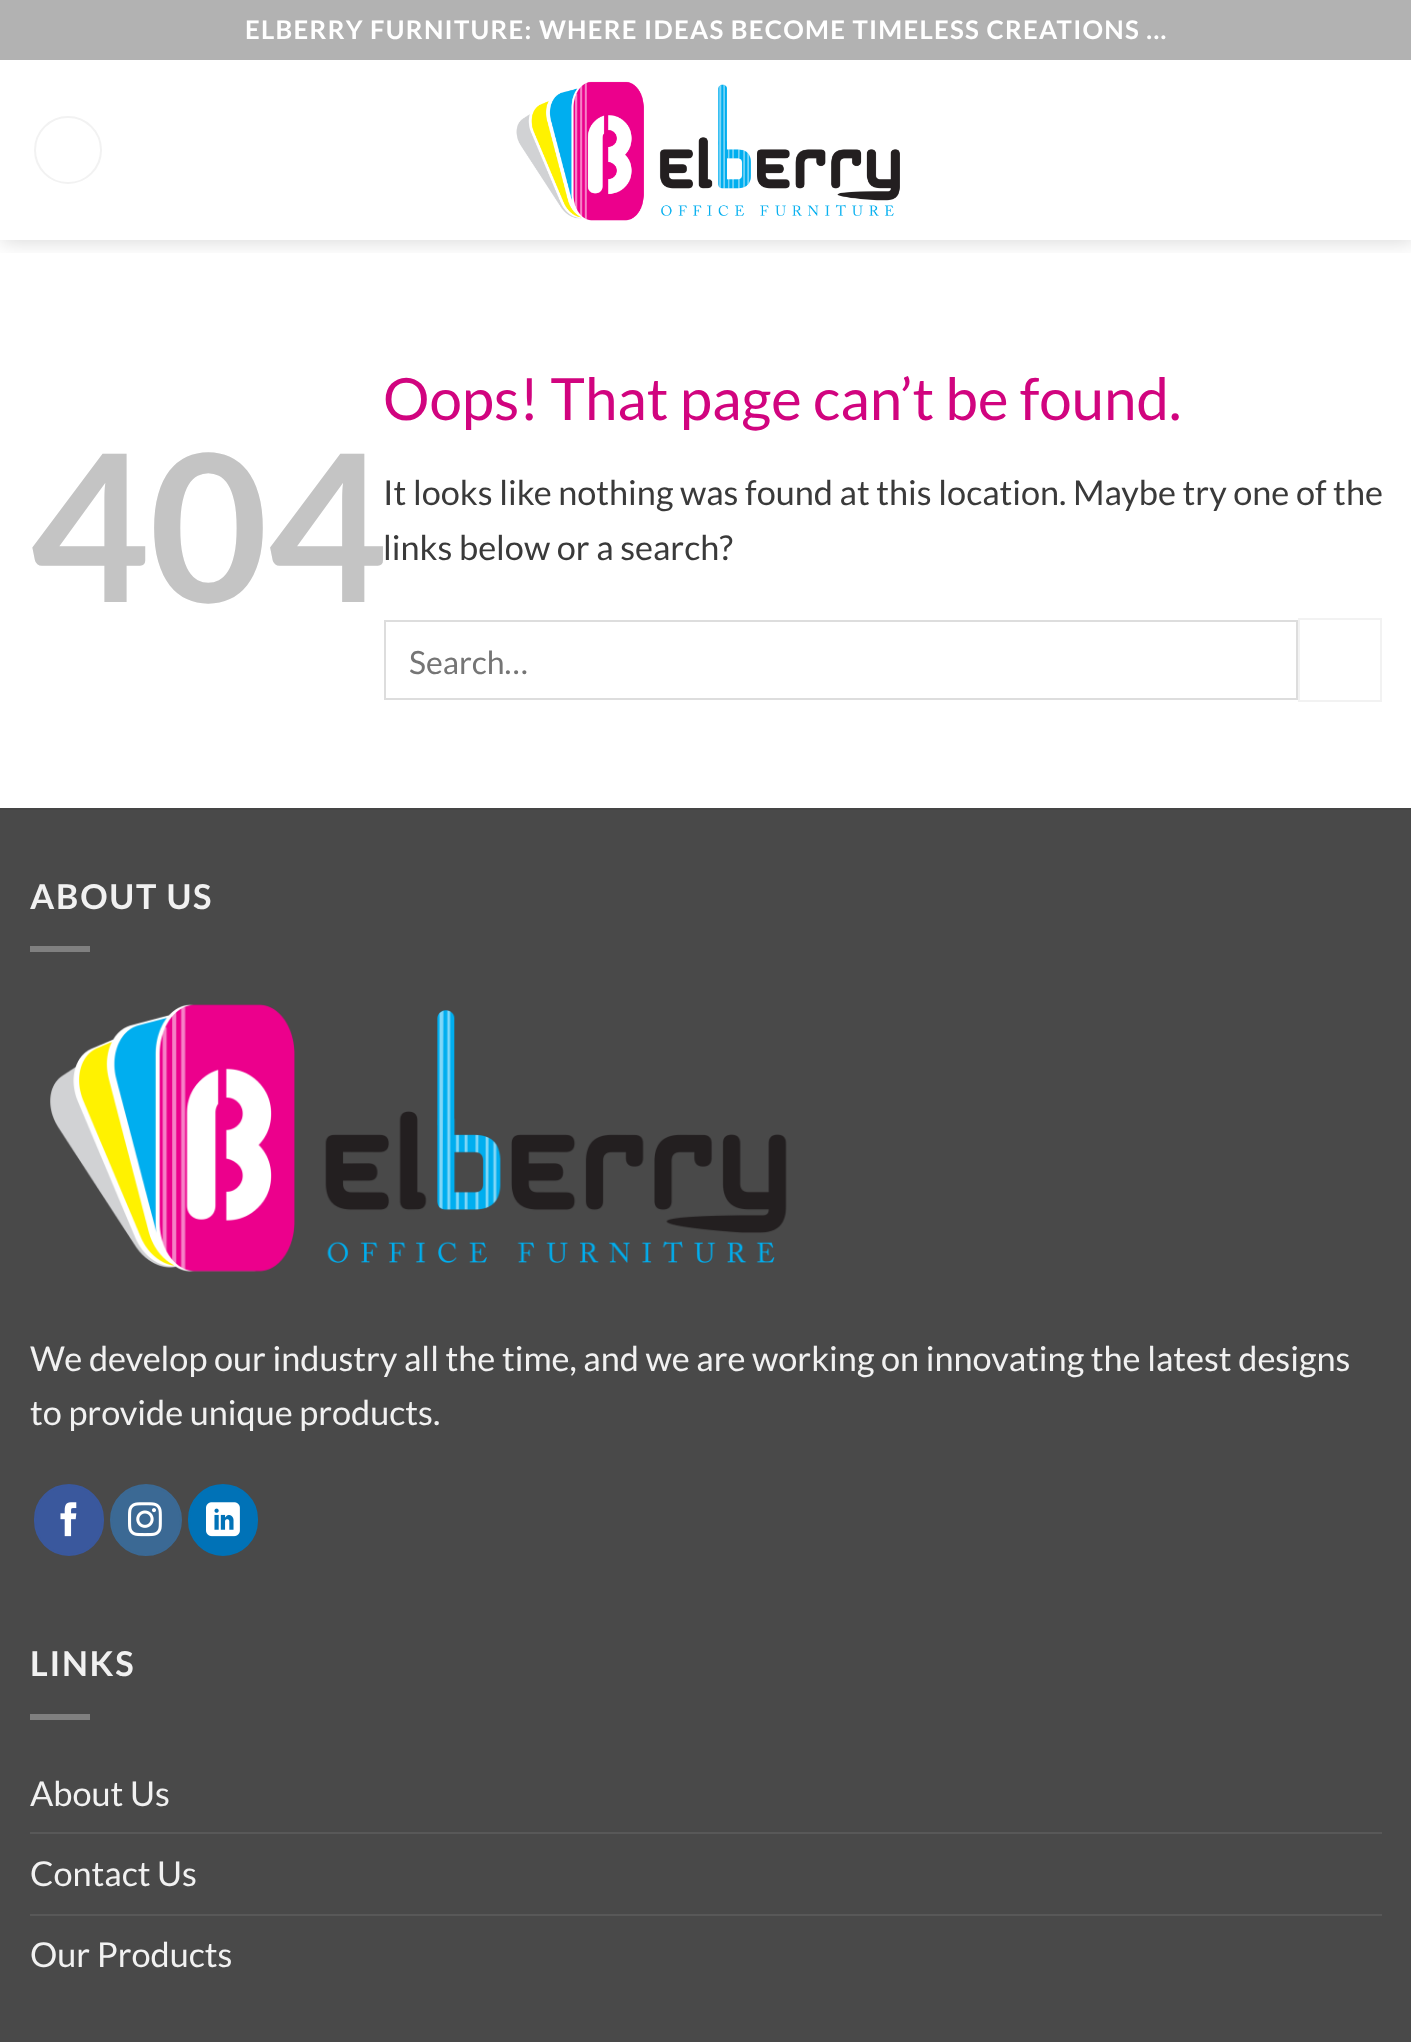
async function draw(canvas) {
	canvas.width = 1411;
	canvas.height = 2042;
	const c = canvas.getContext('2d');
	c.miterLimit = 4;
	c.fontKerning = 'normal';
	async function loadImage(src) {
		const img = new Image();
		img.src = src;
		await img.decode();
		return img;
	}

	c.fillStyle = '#fff';
	c.fillRect(0, 0, 1411, 2042);
	c.save();
	c.beginPath();
	c.rect(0, 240, 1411, 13);
	c.clip();
	c.fillStyle = '#00000026';
	c.filter = 'blur(10px)';
	c.beginPath();
	c.rect(2, 2, 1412, 240);
	c.fill();
	c.filter = 'none';
	c.restore();
	c.fillStyle = '#b2b2b2';
	c.fillRect(0, 0, 1411, 60);
	c.letterSpacing = '1.28px';
	c.font = 'bold 25.7px Lato';
	c.fillStyle = '#fff';
	c.fillText('ELBERRY FURNITURE: WHERE IDEAS BECOME TIMELESS CREATIONS ...', 245, 39);
	c.beginPath();
	c.arc(68, 150, 33, 0, 2 * Math.PI);
	c.strokeStyle = '#f2f2f2';
	c.lineWidth = 2;
	c.stroke();
	c.drawImage(await loadImage('img1.png'), 516, 81, 384, 140);
	c.letterSpacing = '0px';
	c.font = 'bold 205px Lato';
	c.fillStyle = '#c4c4c4';
	c.fillText('404', 30, 602);
	c.font = '58.25px Lato';
	c.fillStyle = '#d1047f';
	c.fillText('Oops! That page can’t be found.', 383, 420);
	c.font = '34.25px Lato';
	c.fillStyle = '#3a3a3a';
	c.fillText('It looks like nothing was found at this location. Maybe try one of the', 383, 505);
	c.fillText('links below or a search?', 383, 560);
	c.strokeStyle = '#ddd';
	c.strokeRect(385, 621, 912, 78);
	c.font = '32px Lato';
	c.fillStyle = '#757575';
	c.fillText('Search…', 409, 674);
	c.strokeStyle = '#f2f2f2';
	c.strokeRect(1299, 619, 82, 82);
	c.fillStyle = '#494949';
	c.fillRect(0, 810, 1411, 1232);
	c.fillStyle = '#454545';
	c.fillRect(0, 808, 1411, 2);
	c.letterSpacing = '1.75px';
	c.font = 'bold 34.25px Lato';
	c.fillStyle = '#f1f1f1';
	c.fillText('ABOUT US', 30, 909);
	c.fillStyle = '#808080';
	c.fillRect(30, 946, 60, 6);
	c.drawImage(await loadImage('img2.png'), 50, 1004, 737, 268);
	c.letterSpacing = '0px';
	c.font = '34.25px Lato';
	c.fillStyle = '#f1f1f1';
	c.fillText('We develop our industry all the time, and we are working on innovating the latest designs', 30, 1371);
	c.fillText('to provide unique products.', 30, 1425);
	c.fillStyle = '#3a589d';
	c.beginPath();
	c.roundRect(35, 1485, 68, 70, 34);
	c.fill();
	c.strokeStyle = '#3a589d';
	c.stroke();
	c.drawImage(await loadImage('img3.png'), 60, 1502, 17, 35);
	c.fillStyle = '#3b6994';
	c.beginPath();
	c.arc(146, 1520, 35, 0, 2 * Math.PI);
	c.fill();
	c.strokeStyle = '#3b6994';
	c.stroke();
	c.drawImage(await loadImage('img4.png'), 128, 1502, 34, 35);
	c.fillStyle = '#0072b7';
	c.beginPath();
	c.roundRect(189, 1485, 68, 70, 34);
	c.fill();
	c.strokeStyle = '#0072b7';
	c.stroke();
	c.drawImage(await loadImage('img5.png'), 206, 1502, 34, 35);
	c.letterSpacing = '1.75px';
	c.font = 'bold 34.25px Lato';
	c.fillStyle = '#f1f1f1';
	c.fillText('LINKS', 30, 1676);
	c.fillStyle = '#808080';
	c.fillRect(30, 1714, 60, 6);
	c.letterSpacing = '0px';
	c.font = '34.25px Lato';
	c.fillStyle = '#f1f1f1';
	c.fillText('About Us', 30, 1806);
	c.fillStyle = '#585858';
	c.fillRect(30, 1832, 1352, 2);
	c.fillStyle = '#f1f1f1';
	c.fillText('Contact Us', 30, 1886);
	c.fillStyle = '#585858';
	c.fillRect(30, 1914, 1352, 2);
	c.fillStyle = '#f1f1f1';
	c.fillText('Our Products', 30, 1967);
}

draw(document.querySelector('canvas'));
